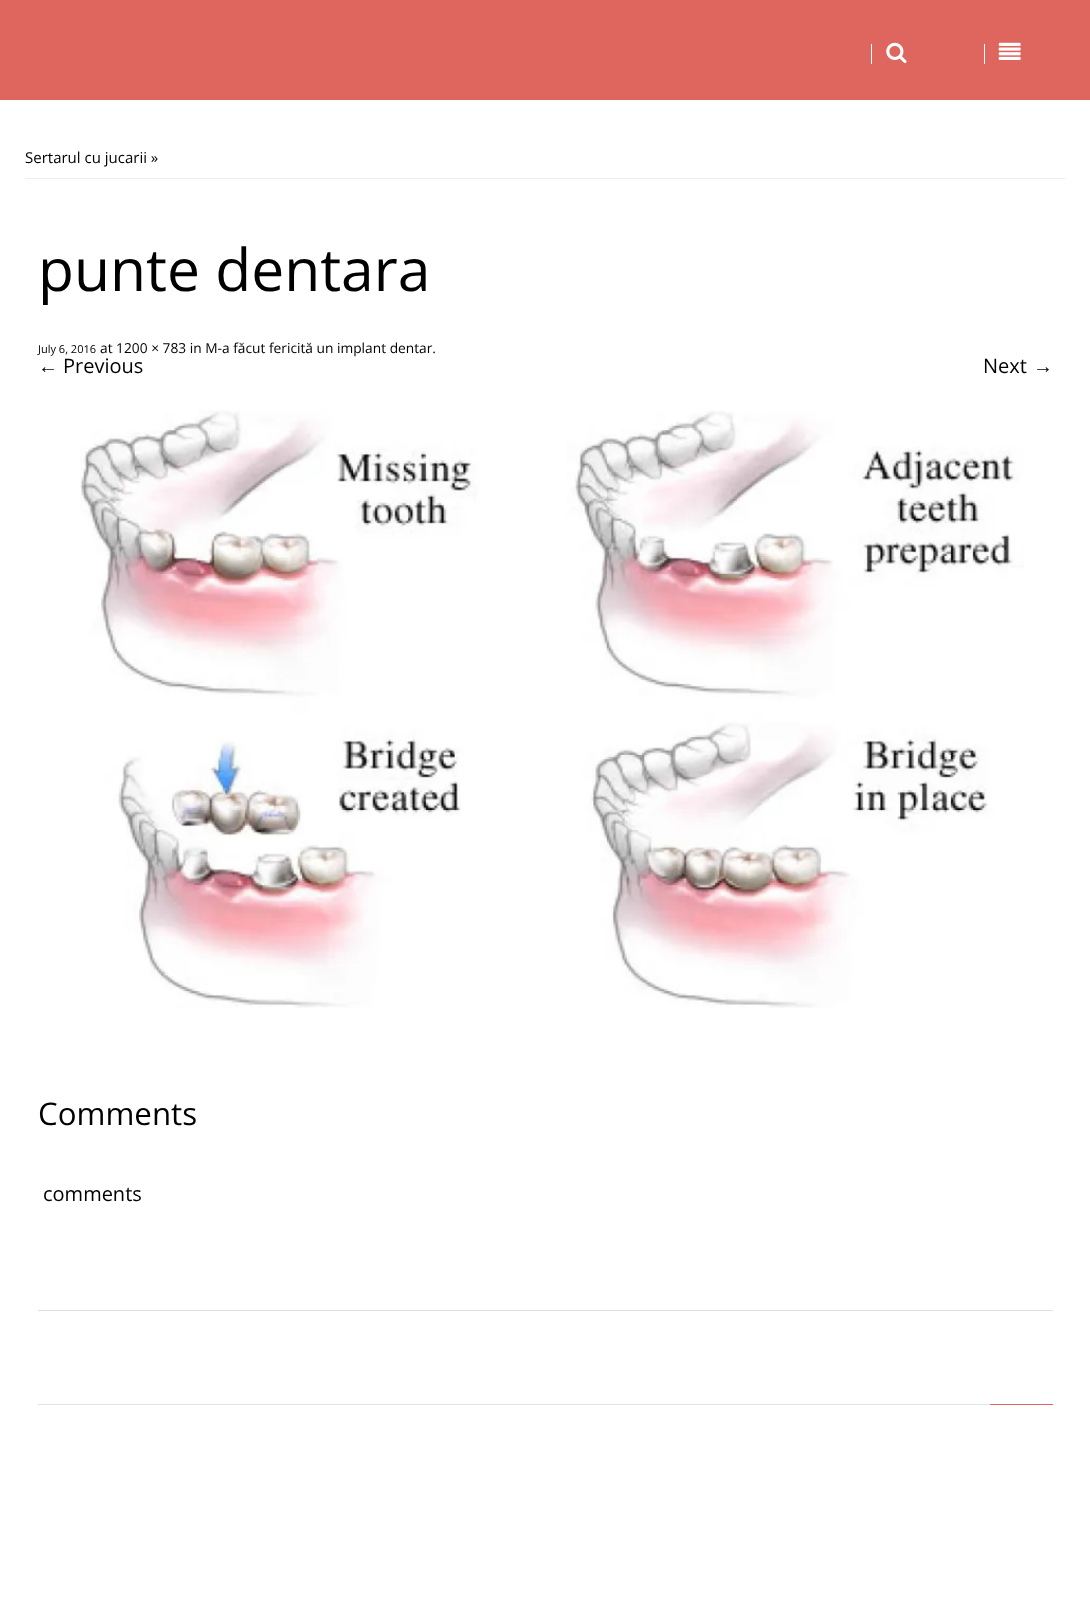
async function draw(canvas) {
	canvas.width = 1090;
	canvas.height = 1608;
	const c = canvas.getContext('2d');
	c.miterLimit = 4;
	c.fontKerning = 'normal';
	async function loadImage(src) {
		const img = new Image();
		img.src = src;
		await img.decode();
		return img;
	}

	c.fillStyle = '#fff';
	c.fillRect(0, 0, 1090, 1608);
	c.fillStyle = '#de665f';
	c.fillRect(0, 0, 1090, 100);
	c.fillStyle = '#fff';
	c.fillRect(871, 44, 1, 20);
	c.drawImage(await loadImage('img1.png'), 886, 42, 21, 22);
	c.fillRect(984, 44, 1, 20);
	c.drawImage(await loadImage('img2.png'), 998, 42, 23, 18);
	c.fillStyle = '#ebeff1';
	c.fillRect(25, 178, 1040, 1);
	c.font = '15px Open Sans';
	c.fillStyle = '#000';
	c.fillText('Sertarul cu jucarii »', 25, 163);
	c.font = '58.75px Open Sans';
	c.fillText('punte dentara', 38, 291);
	c.font = '11px Open Sans';
	c.fillText('July 6, 2016', 38, 353);
	c.font = '13.75px Open Sans';
	c.fillText('at 1200 × 783 in M-a făcut fericită un implant dentar.', 100, 353);
	c.font = '20px Liberation Sans';
	c.fillText('←', 38, 373);
	c.font = '20px Open Sans';
	c.fillText('Previous', 63, 373);
	c.fillText('Next', 983, 373);
	c.font = '20px Liberation Sans';
	c.fillText('→', 1033, 373);
	c.drawImage(await loadImage('img3.png'), 80, 410, 944, 598);
	c.font = '31.25px Open Sans';
	c.fillText('Comments', 38, 1125);
	c.font = '20px Open Sans';
	c.fillText('comments', 43, 1201);
	for (const [x, y, w, h, color] of [
		[38, 1310, 1015, 1, '#dfdfdf'],
		[38, 1404, 952, 1, '#e0e4e6'],
		[990, 1404, 63, 1, '#de665f'],
	]) {
		c.fillStyle = color;
		c.fillRect(x, y, w, h);
	}
}

draw(document.querySelector('canvas'));
